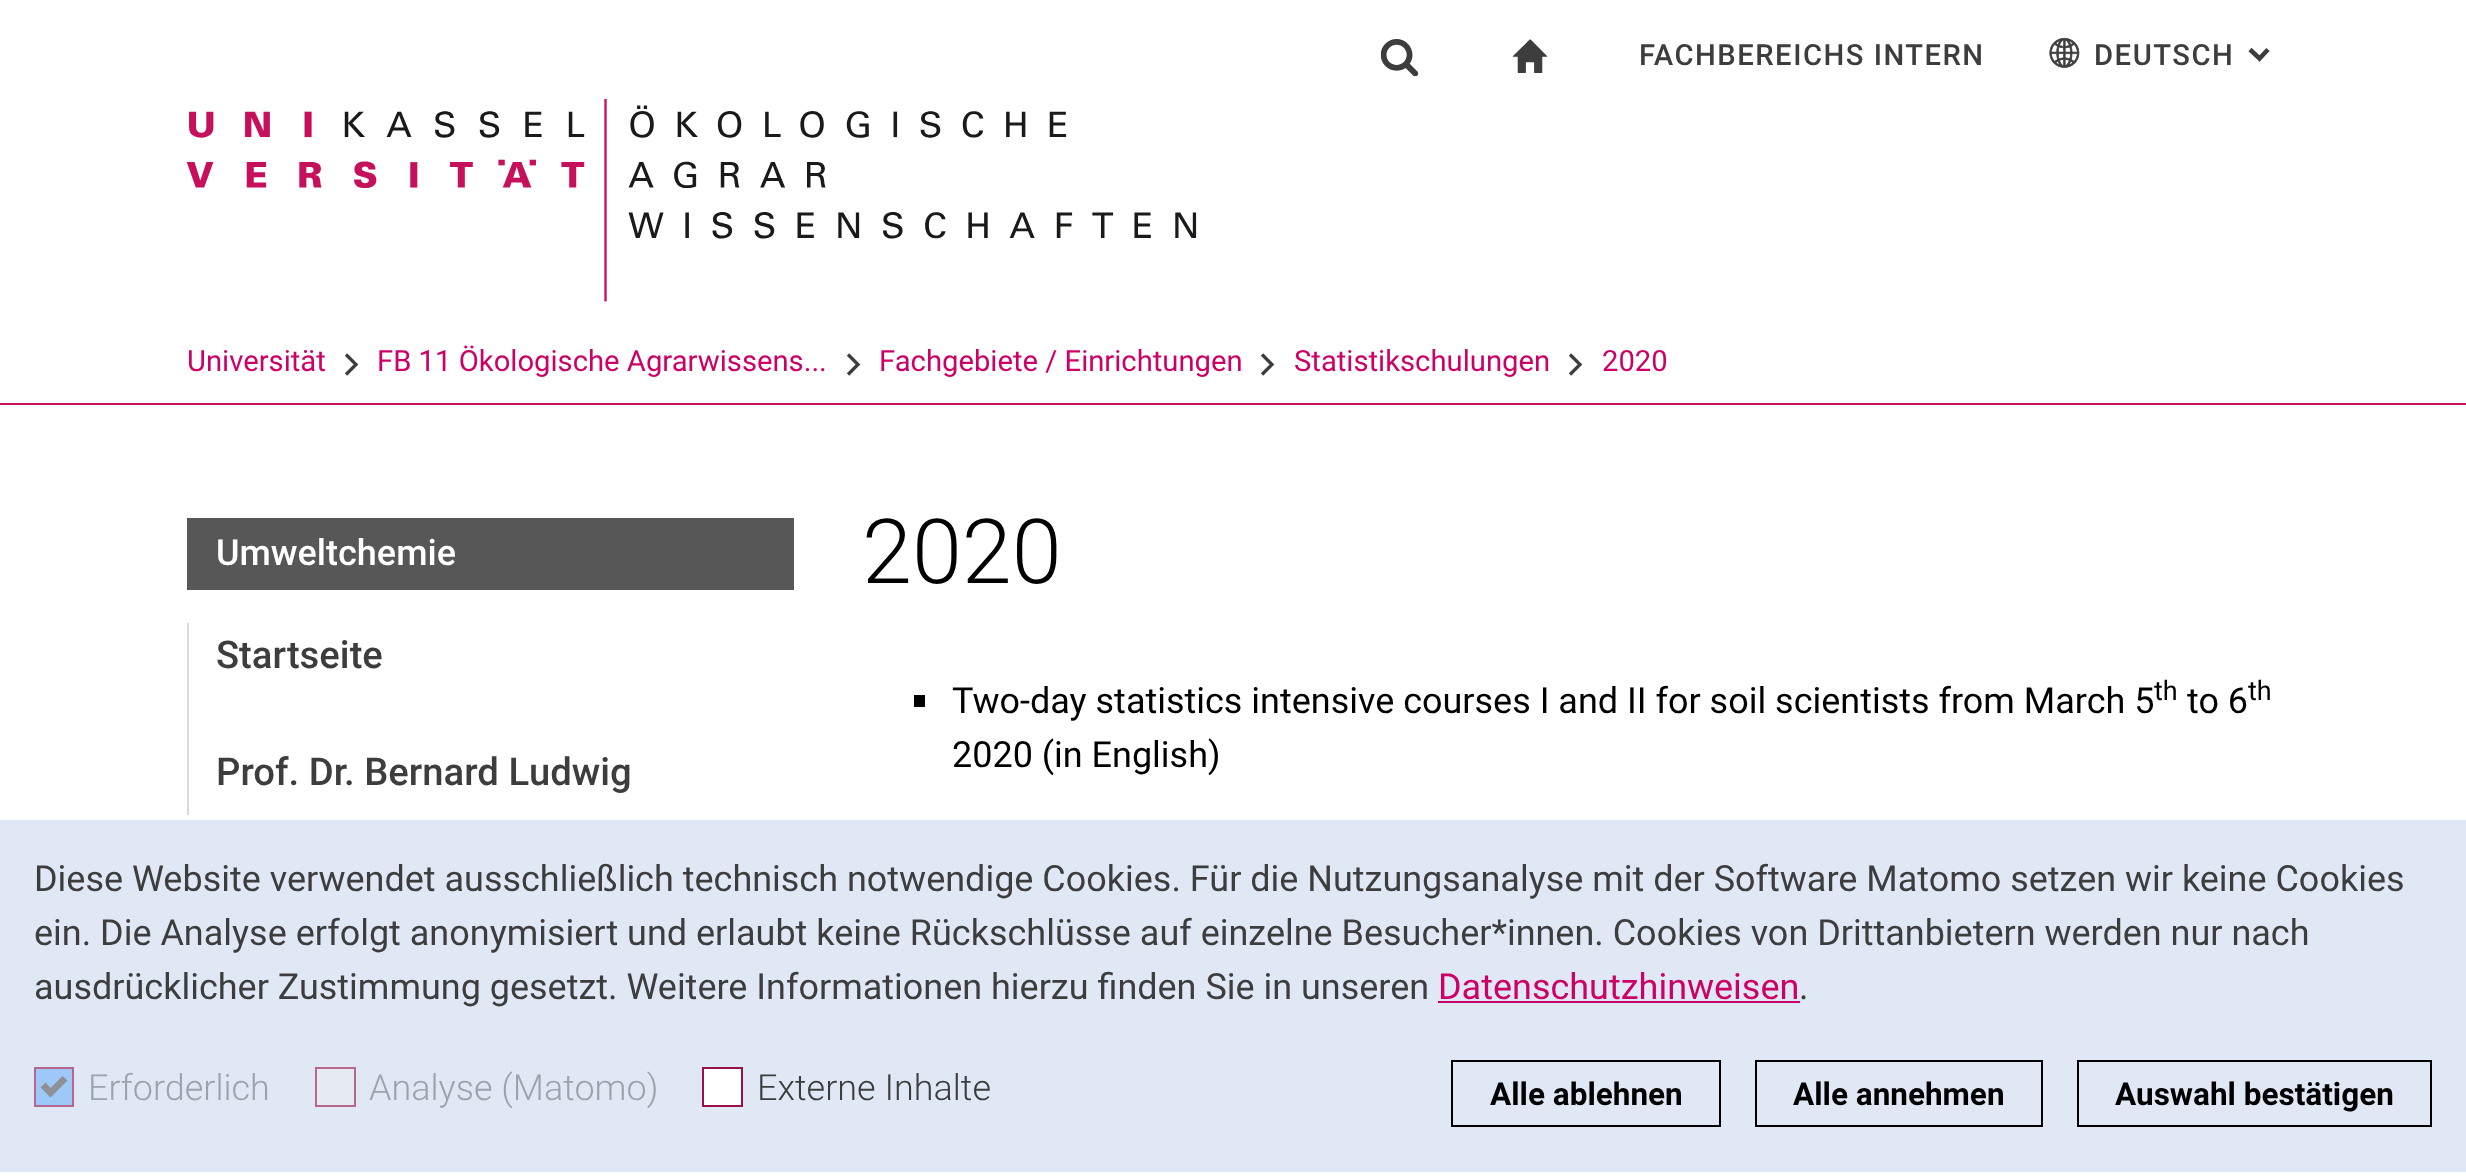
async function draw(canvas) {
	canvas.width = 2466;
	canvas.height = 1176;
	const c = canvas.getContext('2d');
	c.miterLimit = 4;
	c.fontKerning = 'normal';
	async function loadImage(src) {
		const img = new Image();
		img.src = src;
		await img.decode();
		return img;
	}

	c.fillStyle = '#fff';
	c.fillRect(0, 0, 2466, 1176);
	c.fillStyle = '#c7105c';
	c.fillRect(0, 403, 2466, 2);
	c.drawImage(await loadImage('img1.png'), 1380, 39, 39, 38);
	c.drawImage(await loadImage('img2.png'), 1512, 39, 36, 34);
	c.letterSpacing = '1.5px';
	c.font = '500 29.25px Roboto';
	c.fillStyle = '#3d3d3d';
	c.fillText('FACHBEREICHS INTERN', 1639, 65);
	c.drawImage(await loadImage('img3.png'), 2049, 37, 31, 31);
	c.fillText('DEUTSCH', 2094, 65);
	c.beginPath();
	c.moveTo(2268, 49.5);
	c.lineTo(2259.5, 58.5);
	c.lineTo(2250, 49.5);
	c.strokeStyle = '#3d3d3d';
	c.lineWidth = 4.5;
	c.stroke();
	c.drawImage(await loadImage('img4.png'), 187, 99, 1010, 203);
	c.letterSpacing = '0px';
	c.font = '29.25px Roboto';
	c.fillStyle = '#c06';
	c.fillText('Universität', 187, 371);
	c.beginPath();
	c.moveTo(346, 374.5);
	c.lineTo(356, 364.5);
	c.lineTo(346, 354.5);
	c.lineWidth = 3.3;
	c.stroke();
	c.fillText('FB 11 Ökologische Agrarwissens...', 377, 371);
	c.beginPath();
	c.moveTo(848, 374.5);
	c.lineTo(858, 364.5);
	c.lineTo(848, 354.5);
	c.stroke();
	c.fillText('Fachgebiete / Einrichtungen', 879, 371);
	c.beginPath();
	c.moveTo(1262, 374.5);
	c.lineTo(1272, 364.5);
	c.lineTo(1262, 354.5);
	c.stroke();
	c.fillText('Statistikschulungen', 1294, 371);
	c.beginPath();
	c.moveTo(1570, 374.5);
	c.lineTo(1580, 364.5);
	c.lineTo(1570, 354.5);
	c.stroke();
	c.fillText('2020', 1602, 371);
	c.fillStyle = '#575757';
	c.fillRect(187, 518, 607, 72);
	c.font = '500 36px Roboto';
	c.fillStyle = '#fff';
	c.fillText('Umweltchemie', 216, 565);
	c.fillStyle = '#dadada';
	c.fillRect(187, 623, 2, 192);
	c.font = '500 38.25px Roboto';
	c.fillStyle = '#3d3d3d';
	c.fillText('Startseite', 216, 668);
	c.fillText('Prof. Dr. Bernard Ludwig', 216, 785);
	c.font = '300 90px Roboto';
	c.fillStyle = '#000';
	c.fillText('2020', 862, 583);
	c.fillRect(914, 695, 11, 12);
	c.font = '36px Roboto';
	c.fillText('Two-day statistics intensive courses I and II for soil scientists from March 5', 952, 713);
	c.font = '27px Roboto';
	c.fillText('th', 2154, 700);
	c.font = '36px Roboto';
	c.fillText('to 6', 2187, 713);
	c.font = '27px Roboto';
	c.fillText('th', 2248, 700);
	c.font = '36px Roboto';
	c.fillText('2020 (in English)', 952, 767);
	c.fillStyle = '#e1e8f5';
	c.fillRect(0, 820, 2466, 352);
	c.fillStyle = '#3d3d3d';
	for (const [text, x, y] of [
		['Diese Website verwendet ausschließlich technisch notwendige Cookies. Für die Nutzungsanalyse mit der Software Matomo setzen wir keine Cookies', 34, 891],
		['ein. Die Analyse erfolgt anonymisiert und erlaubt keine Rückschlüsse auf einzelne Besucher*innen. Cookies von Drittanbietern werden nur nach', 34, 945],
		['ausdrücklicher Zustimmung gesetzt. Weitere Informationen hierzu finden Sie in unseren', 34, 999],
	]) {
		c.fillText(text, x, y);
	}
	c.fillStyle = '#c06';
	c.fillText('Datenschutzhinweisen', 1438, 999);
	c.fillRect(1438, 1001, 362, 2);
	c.fillStyle = '#3d3d3d';
	c.fillText('.', 1799, 999);
	c.fillStyle = '#9ec8f8';
	c.beginPath();
	c.rect(35, 1068, 38, 38);
	c.fill();
	c.strokeStyle = '#b7668d';
	c.lineWidth = 2;
	c.stroke();
	c.font = '300 36px Roboto';
	c.fillStyle = '#9ba3ad';
	c.fillText('Erforderlich', 88, 1100);
	c.fillStyle = '#8e9196';
	c.beginPath();
	c.moveTo(62.5, 1076);
	c.lineTo(50.5, 1088);
	c.lineTo(45.5, 1082.5);
	c.lineTo(40.5, 1087.5);
	c.lineTo(50.5, 1097.5);
	c.lineTo(67.5, 1080.5);
	c.closePath();
	c.fill();
	c.fillStyle = '#e6eaf1';
	c.beginPath();
	c.rect(316, 1068, 39, 38);
	c.fill();
	c.stroke();
	c.fillStyle = '#9ba3ad';
	c.fillText('Analyse (Matomo)', 369, 1100);
	c.fillStyle = '#fff';
	c.beginPath();
	c.rect(703, 1068, 39, 38);
	c.fill();
	c.strokeStyle = '#9b1047';
	c.stroke();
	c.fillStyle = '#3d3d3d';
	c.fillText('Externe Inhalte', 757, 1100);
	c.strokeStyle = '#000';
	c.strokeRect(1452, 1061, 268, 65);
	c.font = 'bold 31.5px Roboto';
	c.fillStyle = '#000';
	c.fillText('Alle ablehnen', 1490, 1105);
	c.strokeRect(1756, 1061, 286, 65);
	c.fillText('Alle annehmen', 1793, 1105);
	c.strokeRect(2078, 1061, 353, 65);
	c.fillText('Auswahl bestätigen', 2115, 1105);
}

draw(document.querySelector('canvas'));
